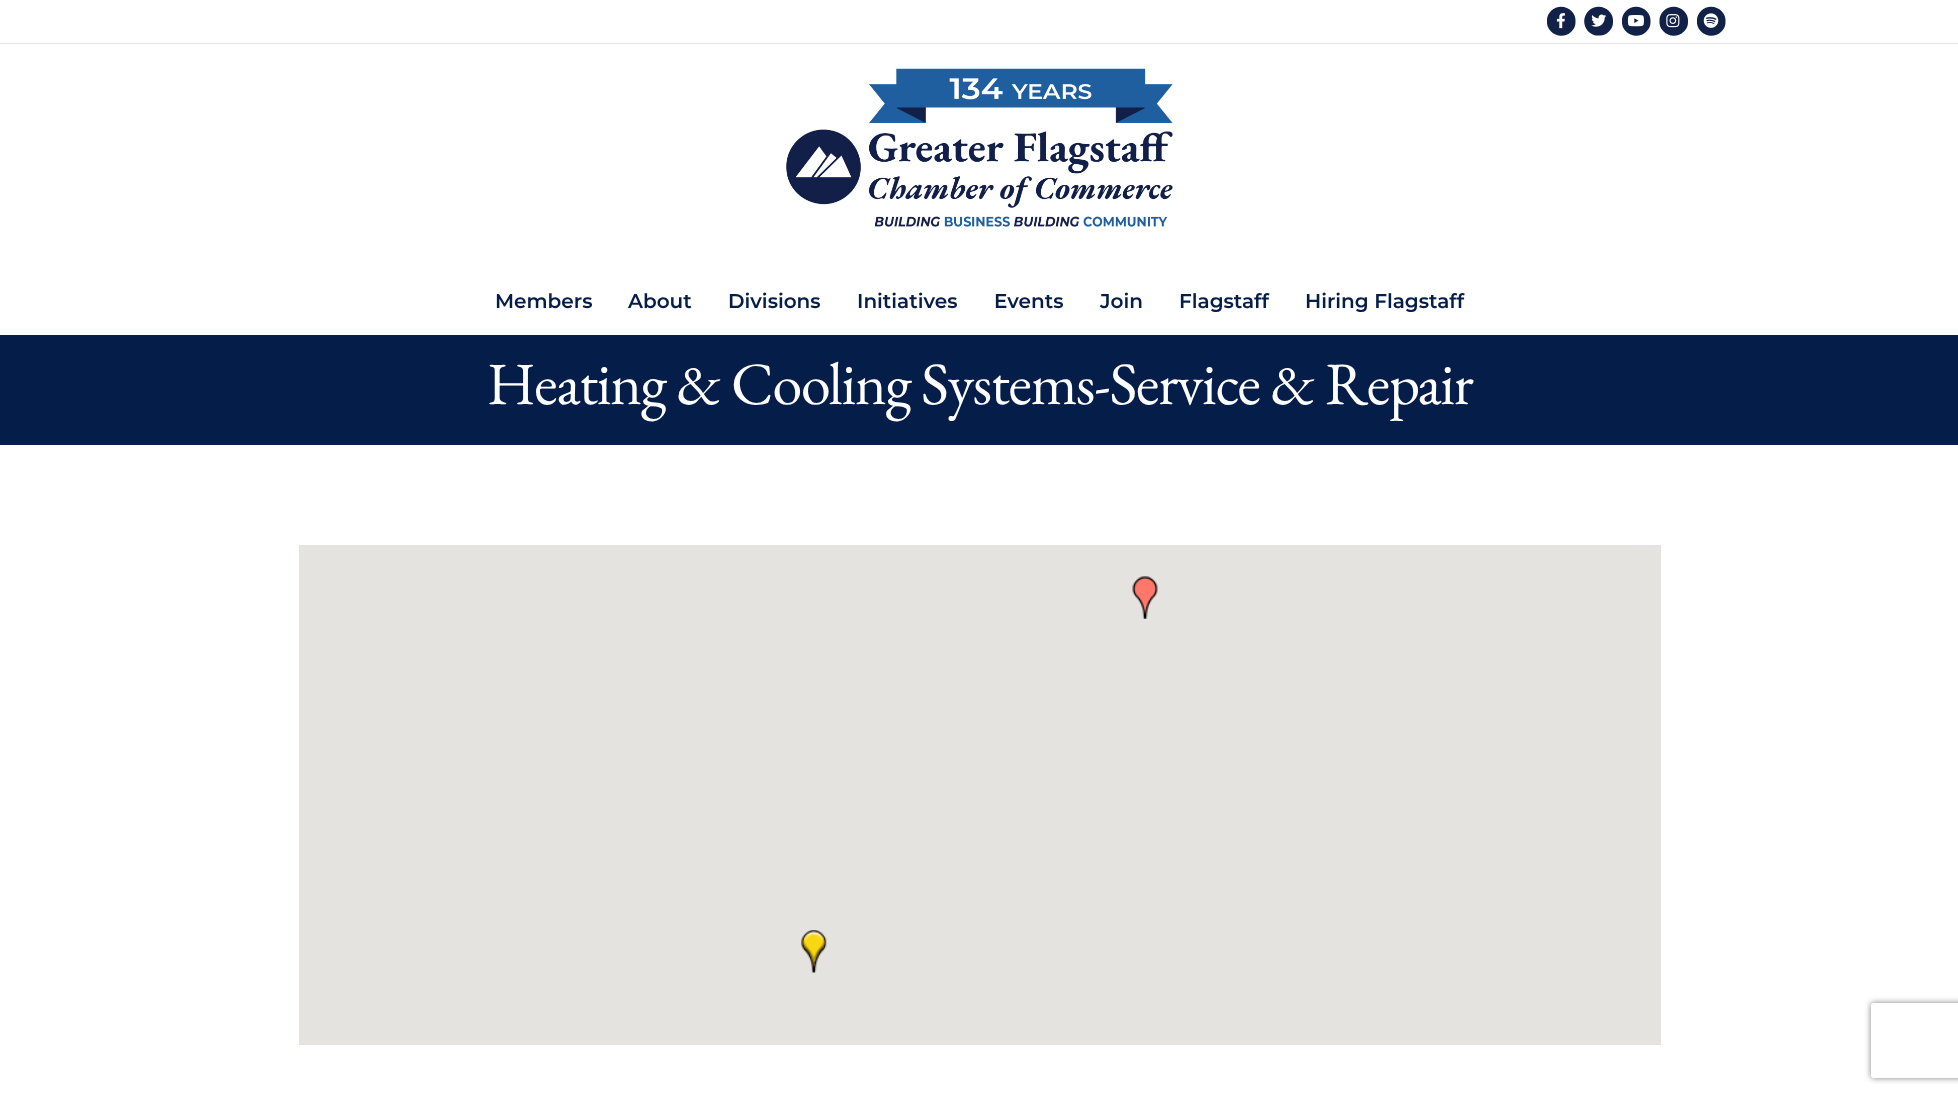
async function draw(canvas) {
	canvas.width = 1958;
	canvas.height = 1094;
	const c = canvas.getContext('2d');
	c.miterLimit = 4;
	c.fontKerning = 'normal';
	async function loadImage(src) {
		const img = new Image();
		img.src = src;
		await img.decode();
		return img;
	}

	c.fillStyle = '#fff';
	c.fillRect(0, 0, 1958, 1094);
	c.fillStyle = '#e6e6e6';
	c.fillRect(0, 43, 1958, 1);
	c.fillStyle = '#122148';
	c.beginPath();
	c.moveTo(1551, 11);
	c.bezierCurveTo(1560.5, 1.5, 1577, 9, 1575.5, 22.5);
	c.bezierCurveTo(1575.5, 26, 1574, 29, 1571.5, 31.5);
	c.bezierCurveTo(1562, 41, 1545.5, 33.5, 1547, 20);
	c.bezierCurveTo(1547, 16.5, 1548.5, 13.5, 1551, 11);
	c.closePath();
	c.fill();
	c.drawImage(await loadImage('img1.png'), 1556, 13, 9, 16);
	c.beginPath();
	c.moveTo(1588.5, 11);
	c.bezierCurveTo(1598, 1.5, 1614.5, 9, 1613, 22.5);
	c.bezierCurveTo(1613, 26, 1611.5, 29, 1609, 31.5);
	c.bezierCurveTo(1606.5, 34, 1603.5, 35.5, 1600, 35.5);
	c.bezierCurveTo(1586.5, 37, 1579, 20.5, 1588.5, 11);
	c.closePath();
	c.fill();
	c.drawImage(await loadImage('img2.png'), 1591, 14, 16, 13);
	c.beginPath();
	c.moveTo(1626, 11);
	c.bezierCurveTo(1635.5, 1.5, 1652, 9, 1650.5, 22.5);
	c.bezierCurveTo(1650.5, 26, 1649, 29, 1646.5, 31.5);
	c.bezierCurveTo(1637, 41, 1620.5, 33.5, 1622, 20);
	c.bezierCurveTo(1622, 16.5, 1623.5, 13.5, 1626, 11);
	c.closePath();
	c.fill();
	c.drawImage(await loadImage('img3.png'), 1627, 15, 17, 12);
	c.beginPath();
	c.moveTo(1663.5, 11);
	c.bezierCurveTo(1673, 1.5, 1689.5, 9, 1688, 22.5);
	c.bezierCurveTo(1688, 26, 1686.5, 29, 1684, 31.5);
	c.bezierCurveTo(1674.5, 41, 1658, 33.5, 1659.5, 20);
	c.bezierCurveTo(1659.5, 16.5, 1661, 13.5, 1663.5, 11);
	c.closePath();
	c.fill();
	c.drawImage(await loadImage('img4.png'), 1666, 14, 14, 14);
	c.beginPath();
	c.moveTo(1701, 11);
	c.bezierCurveTo(1710.5, 1.5, 1727, 9, 1725.5, 22.5);
	c.bezierCurveTo(1725.5, 26, 1724, 29, 1721.5, 31.5);
	c.bezierCurveTo(1712, 41, 1695.5, 33.5, 1697, 20);
	c.bezierCurveTo(1697, 16.5, 1698.5, 13.5, 1701, 11);
	c.closePath();
	c.fill();
	c.drawImage(await loadImage('img5.png'), 1703, 13, 16, 15);
	c.drawImage(await loadImage('img6.png'), 786, 68, 387, 159);
	c.font = '600 20px Montserrat';
	c.fillStyle = '#051d49';
	for (const [text, x, y] of [
		['Members', 495, 308],
		['About', 628, 308],
		['Divisions', 728, 308],
		['Initiatives', 857, 308],
		['Events', 994, 308],
		['Join', 1100, 308],
		['Flagstaff', 1179, 308],
		['Hiring Flagstaff', 1305, 308],
	]) {
		c.fillText(text, x, y);
	}
	c.fillRect(0, 335, 1958, 110);
	c.letterSpacing = '-1.25px';
	c.font = '60px EB Garamond';
	c.fillStyle = '#fff';
	c.fillText('Heating & Cooling Systems-Service & Repair', 487, 404);
	c.fillStyle = '#e5e3df';
	c.fillRect(299, 545, 1362, 500);
	c.drawImage(await loadImage('img7.png'), 1132, 576, 26, 43);
	c.drawImage(await loadImage('img8.png'), 801, 930, 26, 43);
	c.save();
	c.beginPath();
	c.moveTo(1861, 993);
	c.lineTo(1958, 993);
	c.lineTo(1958, 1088);
	c.lineTo(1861, 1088);
	c.closePath();
	c.moveTo(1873.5, 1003);
	c.lineTo(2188.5, 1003);
	c.bezierCurveTo(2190, 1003, 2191, 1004, 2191, 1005.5);
	c.lineTo(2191, 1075.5);
	c.bezierCurveTo(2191, 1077, 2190, 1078, 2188.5, 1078);
	c.lineTo(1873.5, 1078);
	c.bezierCurveTo(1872, 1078, 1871, 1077, 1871, 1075.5);
	c.lineTo(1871, 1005.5);
	c.bezierCurveTo(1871, 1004, 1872, 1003, 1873.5, 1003);
	c.closePath();
	c.clip('evenodd');
	c.fillStyle = '#808080';
	c.filter = 'blur(3px)';
	c.beginPath();
	c.roundRect(1871, 1003, 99, 75, 2.5);
	c.fill();
	c.filter = 'none';
	c.restore();
}

draw(document.querySelector('canvas'));
